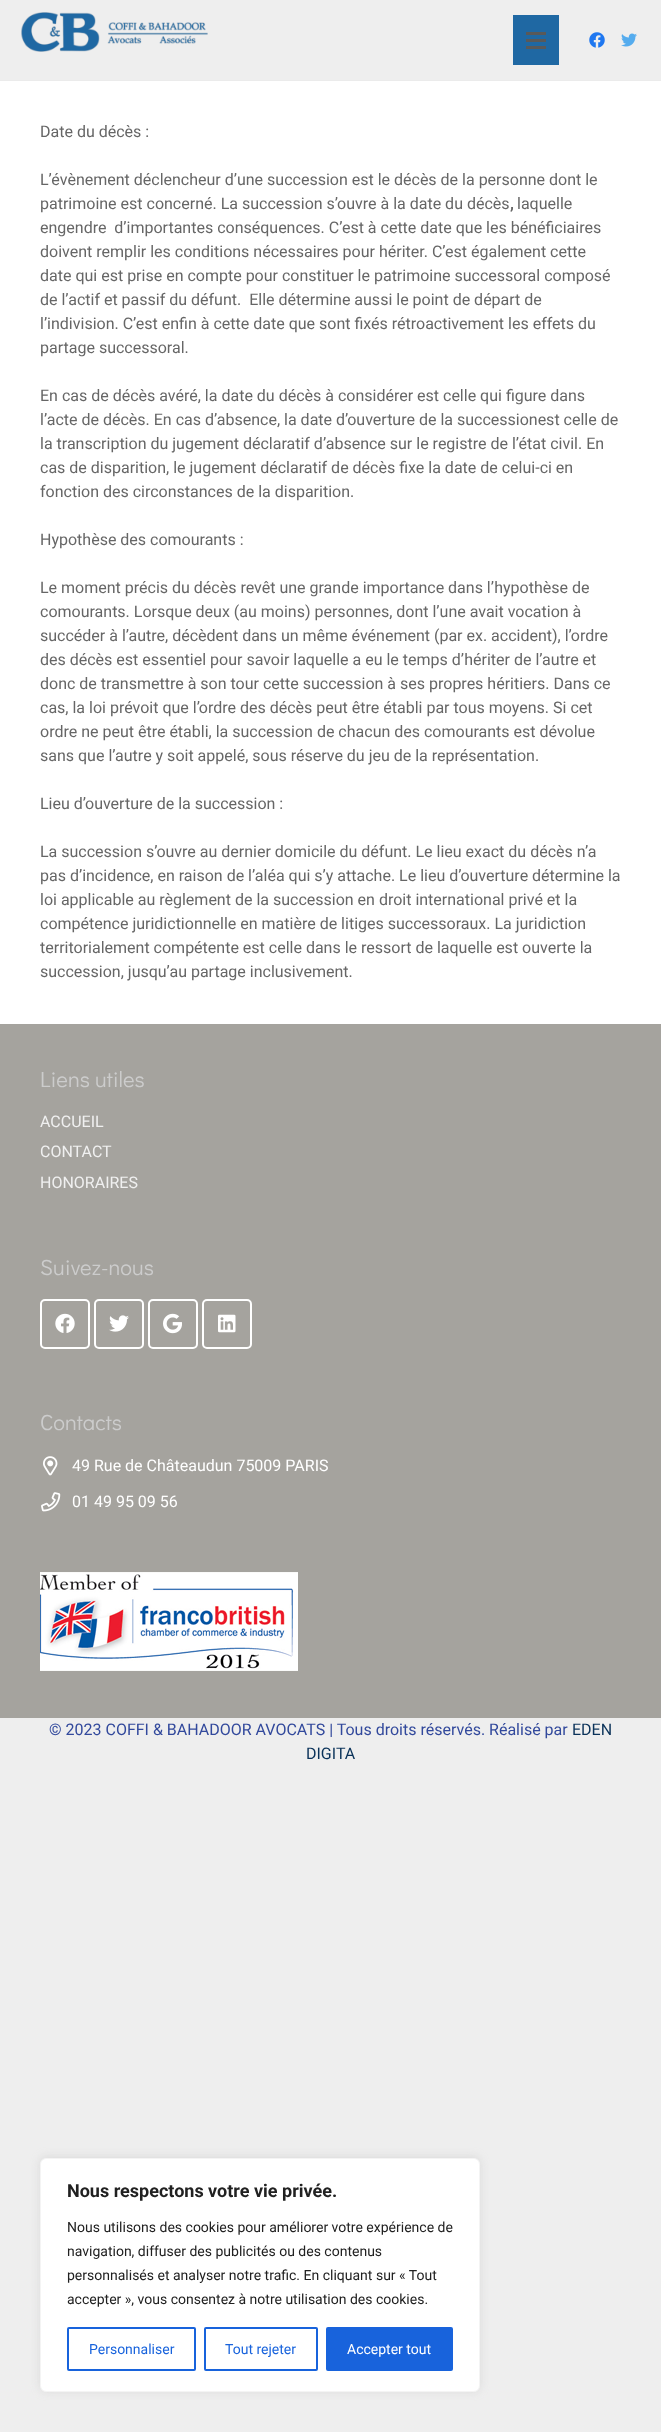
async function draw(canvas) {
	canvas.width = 661;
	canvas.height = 2432;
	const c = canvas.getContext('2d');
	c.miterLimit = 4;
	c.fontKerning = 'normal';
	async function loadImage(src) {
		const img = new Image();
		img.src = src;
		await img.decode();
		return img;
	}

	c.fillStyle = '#eee';
	c.fillRect(0, 0, 661, 2432);
	c.fillStyle = '#fff';
	c.fillRect(0, 81, 661, 943);
	c.fillStyle = '#ebebeb';
	c.fillRect(0, 80, 661, 1);
	c.drawImage(await loadImage('img1.png'), 21, 12, 187, 40);
	for (const [x, y, w, h, color] of [
		[513, 15, 46, 50, '#1f68a3'],
		[526, 39, 20, 3, '#595959'],
		[526, 32, 20, 3, '#595959'],
		[526, 46, 20, 3, '#595959'],
	]) {
		c.fillStyle = color;
		c.fillRect(x, y, w, h);
	}
	c.drawImage(await loadImage('img2.png'), 589, 32, 16, 16);
	c.drawImage(await loadImage('img3.png'), 621, 33, 16, 14);
	c.font = '16px Roboto';
	c.fillStyle = '#666';
	for (const [text, x, y] of [
		['Date du décès :', 40, 137],
		['L’évènement déclencheur d’une succession est le décès de la personne dont le', 40, 185],
		['patrimoine est concerné. La succession s’ouvre à la date du décès', 40, 209],
	]) {
		c.fillText(text, x, y);
	}
	c.font = 'bold 16px Roboto';
	c.fillText(',', 510, 209);
	c.font = '16px Roboto';
	for (const [text, x, y] of [
		['laquelle', 517, 209],
		['engendre  d’importantes conséquences. C’est à cette date que les bénéficiaires', 40, 233],
		['doivent remplir les conditions nécessaires pour hériter. C’est également cette', 40, 257],
		['date qui est prise en compte pour constituer le patrimoine successoral composé', 40, 281],
		['de l’actif et passif du défunt.  Elle détermine aussi le point de départ de', 40, 305],
		['l’indivision. C’est enfin à cette date que sont fixés rétroactivement les effets du', 40, 329],
		['partage successoral.', 40, 353],
		['En cas de décès avéré, la date du décès à considérer est celle qui figure dans', 40, 401],
		['l’acte de décès. En cas d’absence, la date d’ouverture de la successionest celle de', 40, 425],
		['la transcription du jugement déclaratif d’absence sur le registre de l’état civil. En', 40, 449],
		['cas de disparition, le jugement déclaratif de décès fixe la date de celui-ci en', 40, 473],
		['fonction des circonstances de la disparition.', 40, 497],
		['Hypothèse des comourants :', 40, 545],
		['Le moment précis du décès revêt une grande importance dans l’hypothèse de', 40, 593],
		['comourants. Lorsque deux (au moins) personnes, dont l’une avait vocation à', 40, 617],
		['succéder à l’autre, décèdent dans un même événement (par ex. accident), l’ordre', 40, 641],
		['des décès est essentiel pour savoir laquelle a eu le temps d’hériter de l’autre et', 40, 665],
		['donc de transmettre à son tour cette succession à ses propres héritiers. Dans ce', 40, 689],
		['cas, la loi prévoit que l’ordre des décès peut être établi par tous moyens. Si cet', 40, 713],
		['ordre ne peut être établi, la succession de chacun des comourants est dévolue', 40, 737],
		['sans que l’autre y soit appelé, sous réserve du jeu de la représentation.', 40, 761],
		['Lieu d’ouverture de la succession :', 40, 809],
		['La succession s’ouvre au dernier domicile du défunt. Le lieu exact du décès n’a', 40, 857],
		['pas d’incidence, en raison de l’aléa qui s’y attache. Le lieu d’ouverture détermine la', 40, 881],
		['loi applicable au règlement de la succession en droit international privé et la', 40, 905],
		['compétence juridictionnelle en matière de litiges successoraux. La juridiction', 40, 929],
		['territorialement compétente est celle dans le ressort de laquelle est ouverte la', 40, 953],
		['succession, jusqu’au partage inclusivement.', 40, 977],
	]) {
		c.fillText(text, x, y);
	}
	c.fillStyle = '#a5a39e';
	c.fillRect(0, 1024, 661, 694);
	c.font = '22px Didact Gothic';
	c.fillStyle = '#ccc';
	c.fillText('Liens utiles', 40, 1087);
	c.font = '16px Roboto';
	c.fillStyle = '#f0f0f0';
	for (const [text, x, y] of [
		['ACCUEIL', 40, 1127],
		['CONTACT', 40, 1157],
		['HONORAIRES', 40, 1188],
	]) {
		c.fillText(text, x, y);
	}
	c.font = '22px Didact Gothic';
	c.fillStyle = '#ccc';
	c.fillText('Suivez-nous', 40, 1275);
	c.beginPath();
	c.roundRect(41, 1300, 48, 48, 4);
	c.strokeStyle = '#fff';
	c.lineWidth = 2;
	c.stroke();
	c.drawImage(await loadImage('img4.png'), 55, 1313, 20, 20);
	c.beginPath();
	c.roundRect(95, 1300, 48, 48, 4);
	c.stroke();
	c.drawImage(await loadImage('img5.png'), 109, 1315, 20, 17);
	c.beginPath();
	c.roundRect(149, 1300, 48, 48, 4);
	c.stroke();
	c.drawImage(await loadImage('img6.png'), 163, 1313, 19, 21);
	c.beginPath();
	c.roundRect(203, 1300, 48, 48, 4);
	c.stroke();
	c.drawImage(await loadImage('img7.png'), 218, 1314, 18, 19);
	c.fillText('Contacts', 40, 1430);
	c.drawImage(await loadImage('img8.png'), 43, 1456, 15, 20);
	c.font = '16px Roboto';
	c.fillStyle = '#fff';
	c.fillText('49 Rue de Châteaudun 75009 PARIS', 72, 1471);
	c.drawImage(await loadImage('img9.png'), 41, 1492, 20, 20);
	c.fillText('01 49 95 09 56', 72, 1507);
	c.drawImage(await loadImage('img10.png'), 40, 1572, 258, 99);
	c.fillStyle = '#32499c';
	c.fillText('© 2023 COFFI & BAHADOOR AVOCATS | Tous droits réservés. Réalisé par', 49, 1735);
	c.fillStyle = '#0a3259';
	c.fillText('EDEN', 572, 1735);
	c.fillText('DIGITA', 306, 1759);
	c.fillStyle = '#acabab4d';
	c.filter = 'blur(5px)';
	c.beginPath();
	c.roundRect(40, 2157, 440, 234, 6);
	c.fill();
	c.filter = 'none';
	c.fillStyle = '#fff';
	c.beginPath();
	c.roundRect(40.5, 2158.5, 439, 233, 5.5);
	c.fill();
	c.strokeStyle = '#f4f4f4';
	c.lineWidth = 1;
	c.stroke();
	c.font = 'bold 18px Roboto';
	c.fillStyle = '#212121';
	c.fillText('Nous respectons votre vie privée.', 67, 2197);
	c.font = '14px Roboto';
	for (const [text, x, y] of [
		['Nous utilisons des cookies pour améliorer votre expérience de', 67, 2232],
		['navigation, diffuser des publicités ou des contenus', 67, 2256],
		['personnalisés et analyser notre trafic. En cliquant sur « Tout', 67, 2280],
		['accepter », vous consentez à notre utilisation des cookies.', 67, 2304],
	]) {
		c.fillText(text, x, y);
	}
	c.beginPath();
	c.roundRect(68, 2328, 127, 42, 1);
	c.strokeStyle = '#1863dc';
	c.lineWidth = 2;
	c.stroke();
	c.fillStyle = '#1863dc';
	c.fillText('Personnaliser', 89, 2354);
	c.beginPath();
	c.roundRect(205, 2328, 112, 42, 1);
	c.stroke();
	c.fillText('Tout rejeter', 225, 2354);
	c.beginPath();
	c.roundRect(327, 2328, 125, 42, 1);
	c.fill();
	c.stroke();
	c.fillStyle = '#fff';
	c.fillText('Accepter tout', 347, 2354);
}

draw(document.querySelector('canvas'));
